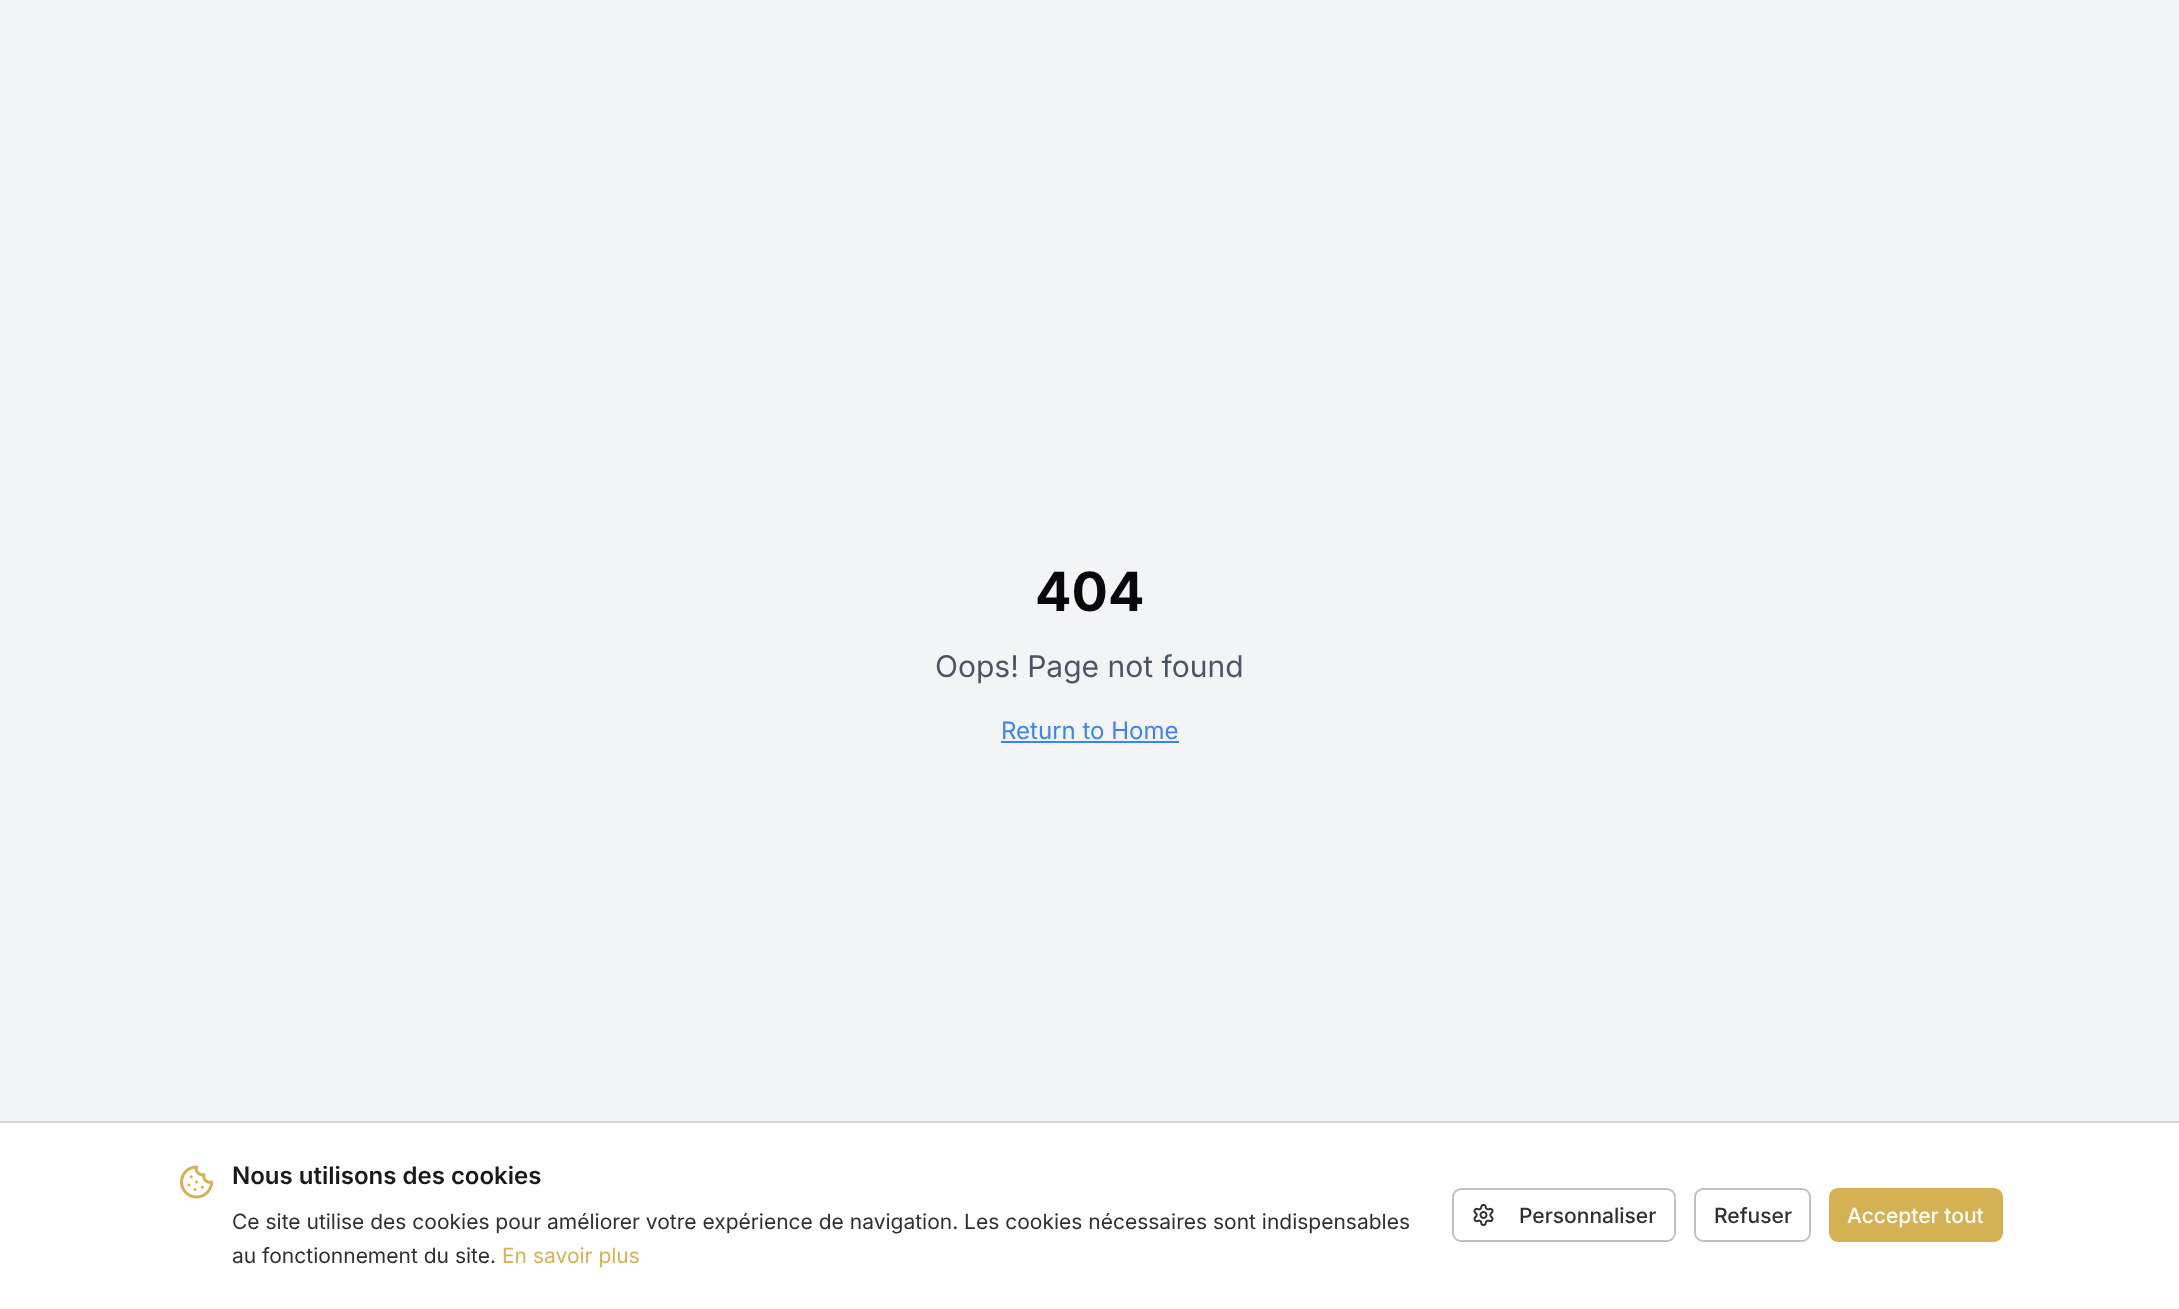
async function draw(canvas) {
	canvas.width = 2179;
	canvas.height = 1309;
	const c = canvas.getContext('2d');
	c.miterLimit = 4;
	c.fontKerning = 'normal';
	async function loadImage(src) {
		const img = new Image();
		img.src = src;
		await img.decode();
		return img;
	}

	c.fillStyle = '#f3f4f6';
	c.fillRect(0, 0, 2179, 1309);
	c.font = 'bold 54px Inter';
	c.fillStyle = '#09090b';
	c.fillText('404', 1035, 611);
	c.font = '30px Inter';
	c.fillStyle = '#4b5563';
	c.fillText('Oops! Page not found', 935, 677);
	c.font = '24px Inter';
	c.fillStyle = '#3b82f6';
	c.fillText('Return to Home', 1001, 739);
	for (const [x, y, w, h, color] of [
		[1001, 741, 178, 2, '#3b82f6'],
		[0, 1123, 2179, 186, '#fff'],
		[0, 1121, 2179, 2, '#d6d6d6'],
	]) {
		c.fillStyle = color;
		c.fillRect(x, y, w, h);
	}
	c.drawImage(await loadImage('img1.png'), 180, 1165, 33, 34);
	c.font = '600 24px Inter';
	c.fillStyle = '#1a1a1a';
	c.fillText('Nous utilisons des cookies', 232, 1184);
	c.font = '21px Inter';
	c.fillStyle = '#303030';
	c.fillText('Ce site utilise des cookies pour améliorer votre expérience de navigation. Les cookies nécessaires sont indispensables', 232, 1229);
	c.fillText('au fonctionnement du site.', 232, 1263);
	c.fillStyle = '#d4b254';
	c.fillText('En savoir plus', 502, 1263);
	c.beginPath();
	c.roundRect(1453, 1189, 222, 52, 8);
	c.strokeStyle = '#c1c1c1';
	c.lineWidth = 2;
	c.stroke();
	c.drawImage(await loadImage('img2.png'), 1473, 1204, 21, 22);
	c.font = '500 21px Inter';
	c.fillStyle = '#303030';
	c.fillText('Personnaliser', 1519, 1223);
	c.beginPath();
	c.roundRect(1695, 1189, 115, 52, 8);
	c.stroke();
	c.fillText('Refuser', 1714, 1223);
	c.fillStyle = '#d4b254';
	c.beginPath();
	c.roundRect(1829, 1188, 174, 54, 9);
	c.fill();
	c.fillStyle = '#fff';
	c.fillText('Accepter tout', 1847, 1223);
}

draw(document.querySelector('canvas'));
